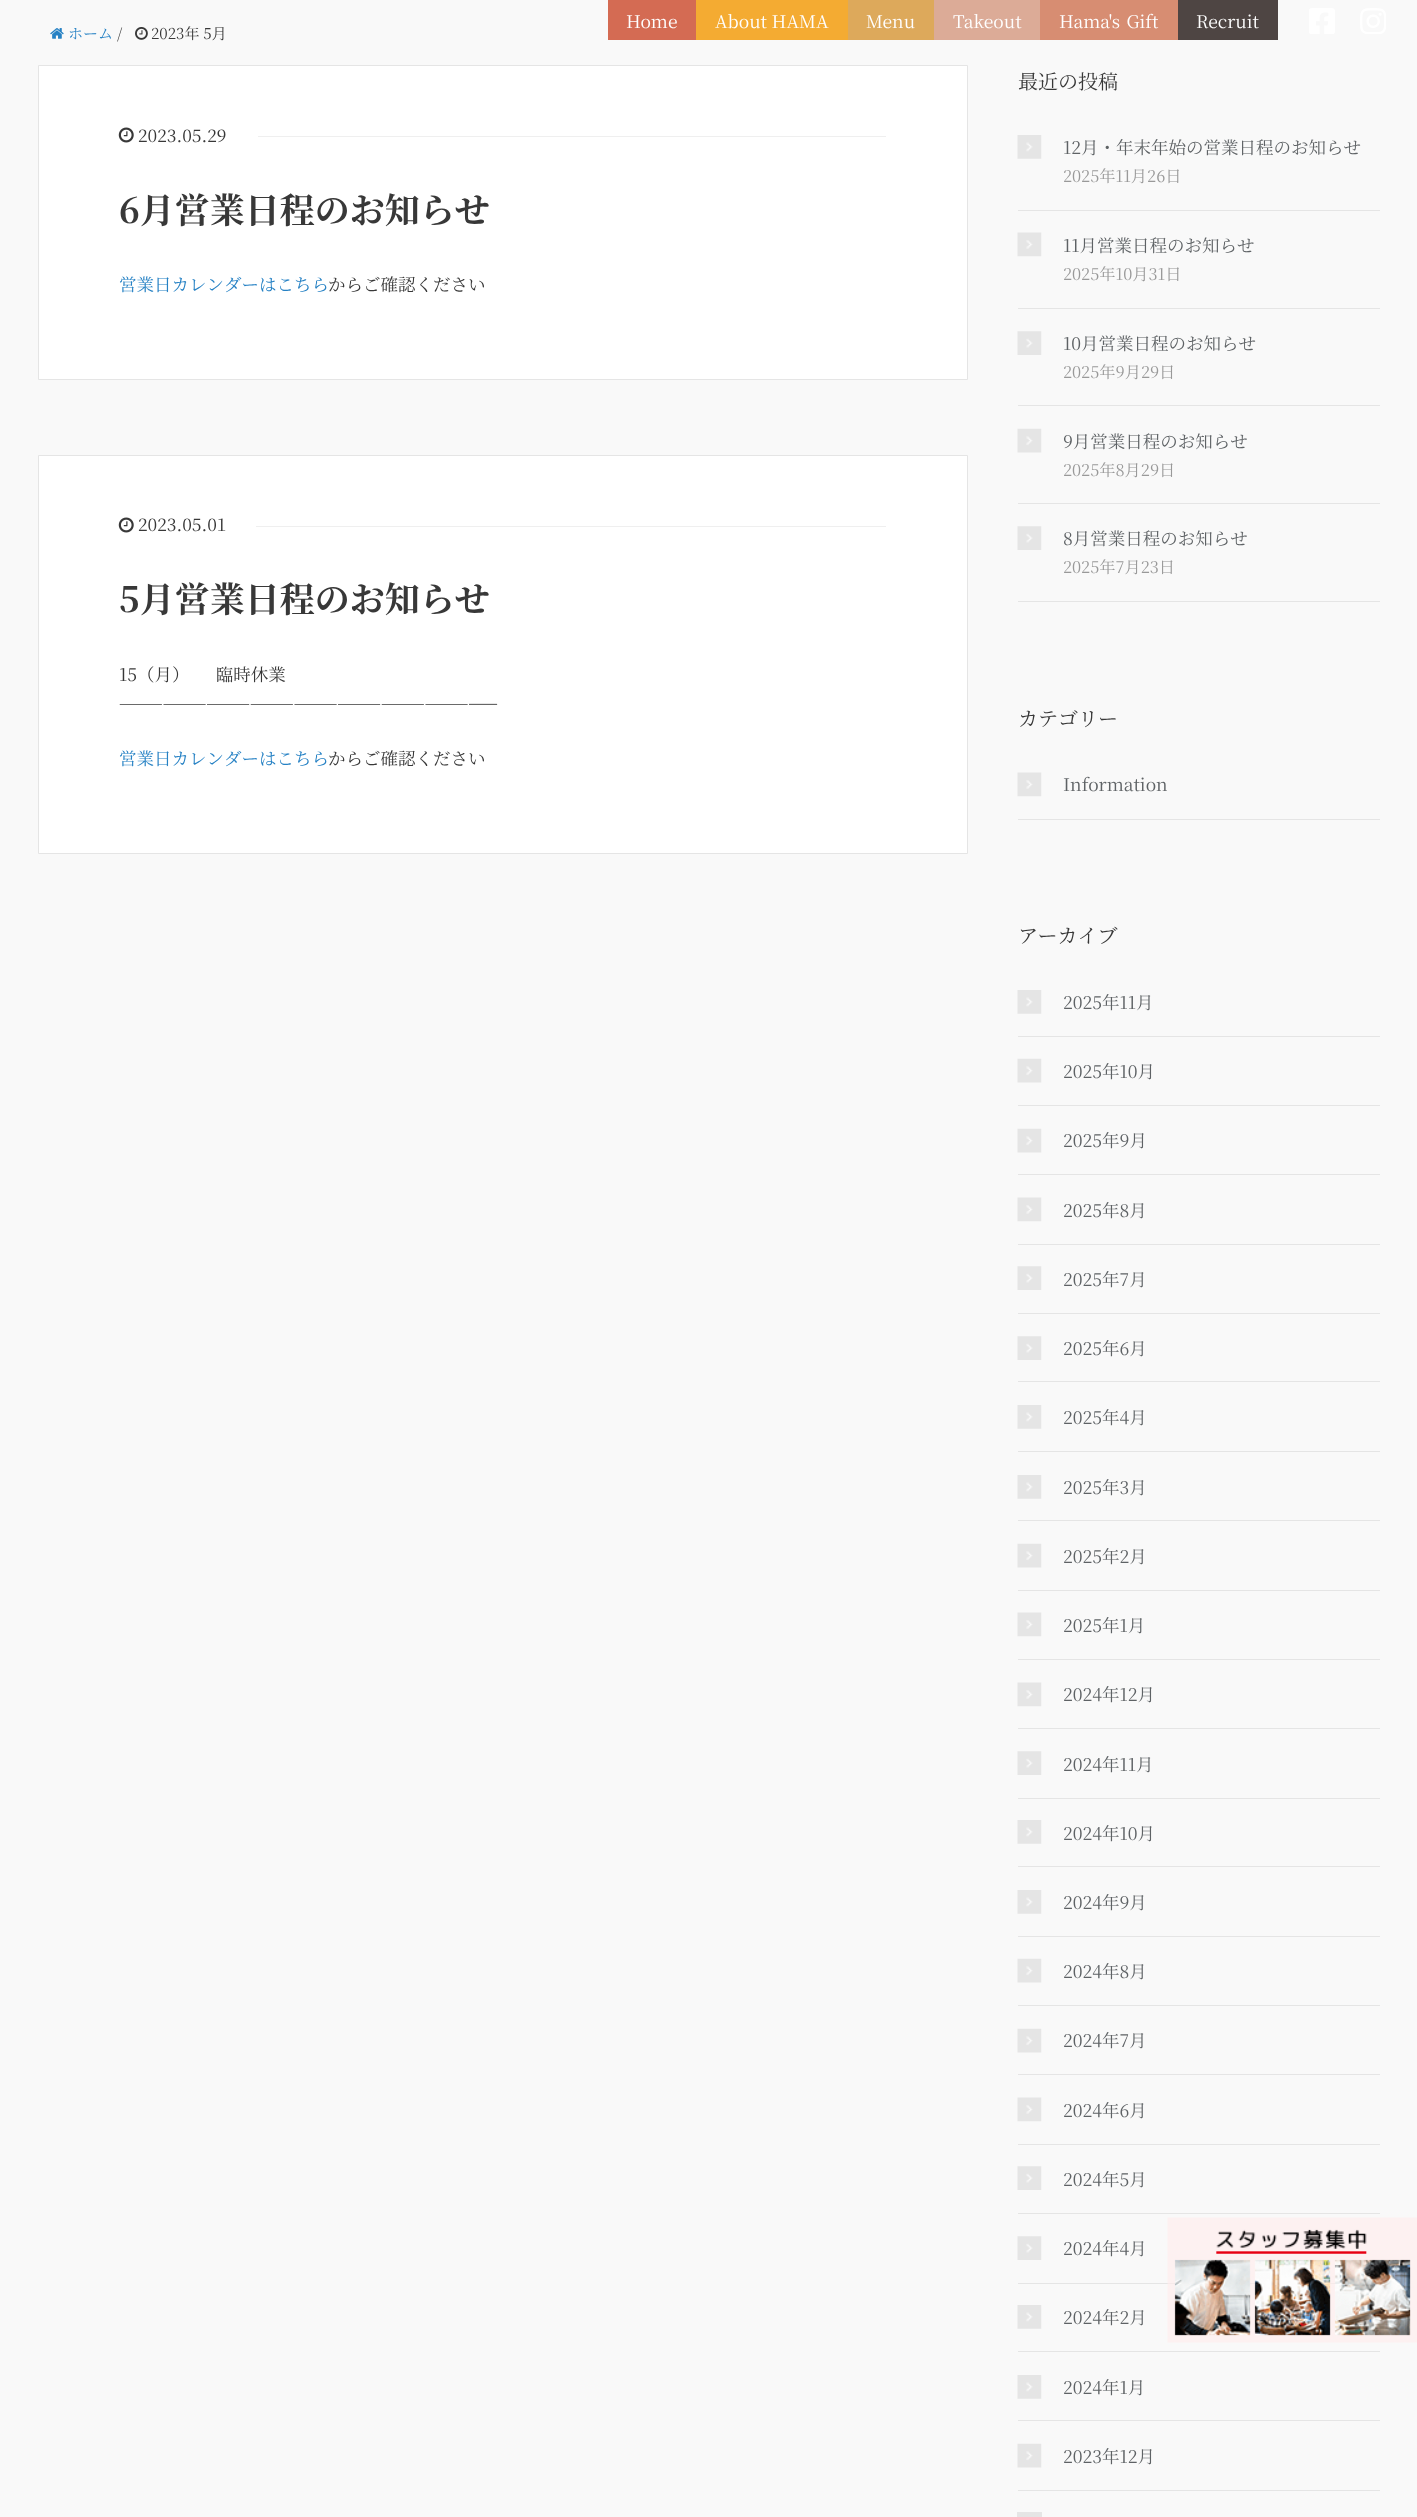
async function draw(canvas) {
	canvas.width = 1417;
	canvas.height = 2517;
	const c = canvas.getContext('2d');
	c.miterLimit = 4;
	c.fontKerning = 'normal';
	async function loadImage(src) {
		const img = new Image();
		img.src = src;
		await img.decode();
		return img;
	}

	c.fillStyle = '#f9f9f9';
	c.fillRect(0, 0, 1417, 2517);
	c.fillStyle = '#d46b53';
	c.fillRect(608, 0, 88, 40);
	c.font = '17.5px Noto Serif JP';
	c.fillStyle = '#fff';
	c.fillText('Home', 626, 28);
	c.fillStyle = '#f4ab32';
	c.fillRect(696, 0, 152, 40);
	c.fillStyle = '#fff';
	c.fillText('About HAMA', 715, 28);
	c.fillStyle = '#dda95b';
	c.fillRect(848, 0, 86, 40);
	c.fillStyle = '#fff';
	c.fillText('Menu', 866, 28);
	c.fillStyle = '#dcab97';
	c.fillRect(934, 0, 106, 40);
	c.fillStyle = '#fff';
	c.fillText('Takeout', 953, 28);
	c.fillStyle = '#d78d72';
	c.fillRect(1040, 0, 138, 40);
	c.wordSpacing = '2px';
	c.fillStyle = '#fff';
	c.fillText('Hama\'s Gift', 1059, 28);
	c.fillStyle = '#4e4543';
	c.fillRect(1178, 0, 100, 40);
	c.wordSpacing = '0px';
	c.fillStyle = '#fff';
	c.fillText('Recruit', 1196, 28);
	c.drawImage(await loadImage('img1.png'), 1309, 8, 26, 26);
	c.drawImage(await loadImage('img2.png'), 1360, 8, 26, 26);
	c.drawImage(await loadImage('img3.png'), 50, 28, 14, 11);
	c.font = '15px Noto Serif JP';
	c.fillStyle = '#2581c4';
	c.fillText('ホーム', 68, 39);
	c.fillStyle = '#383838';
	c.fillText('/', 117, 39);
	c.drawImage(await loadImage('img4.png'), 135, 27, 13, 13);
	c.fillText('2023年 5月', 151, 39);
	c.fillStyle = '#fff';
	c.beginPath();
	c.rect(38.5, 65.5, 929, 314);
	c.fill();
	c.strokeStyle = '#e5e5e5';
	c.stroke();
	c.fillStyle = '#efefef';
	c.fillRect(258, 136, 628, 1);
	c.drawImage(await loadImage('img5.png'), 118, 127, 16, 16);
	c.font = '17.5px Noto Serif JP';
	c.fillStyle = '#383838';
	c.fillText('2023.05.29', 138, 142);
	c.font = 'bold 35px Noto Serif JP';
	c.fillText('6月営業日程のお知らせ', 119, 223);
	c.font = '17.5px Noto Serif JP';
	c.fillStyle = '#2581c4';
	c.fillText('営業日カレンダーはこちら', 119, 291);
	c.fillStyle = '#383838';
	c.fillText('からご確認ください', 328, 291);
	c.fillStyle = '#fff';
	c.beginPath();
	c.rect(38.5, 455.5, 929, 398);
	c.fill();
	c.stroke();
	c.fillStyle = '#efefef';
	c.fillRect(256, 526, 630, 1);
	c.drawImage(await loadImage('img5.png'), 118, 517, 16, 16);
	c.fillStyle = '#383838';
	c.fillText('2023.05.01', 138, 531);
	c.font = 'bold 35px Noto Serif JP';
	c.fillText('5月営業日程のお知らせ', 119, 612);
	c.font = '17.5px Noto Serif JP';
	c.fillText('15（月）　　臨時休業', 119, 681);
	c.fillText('——————————————————————————', 119, 709);
	c.fillStyle = '#2581c4';
	c.fillText('営業日カレンダーはこちら', 119, 765);
	c.fillStyle = '#383838';
	c.fillText('からご確認ください', 328, 765);
	c.font = '20px Noto Serif JP';
	c.fillText('最近の投稿', 1018, 89);
	c.fillStyle = '#e5e5e5';
	c.fillRect(1018, 210, 362, 1);
	c.drawImage(await loadImage('img6.png'), 1017, 135, 25, 24);
	c.font = '17.5px Noto Serif JP';
	c.fillStyle = '#5e6265';
	c.fillText('12月・年末年始の営業日程のお知らせ', 1063, 154);
	c.font = '16.25px Noto Serif JP';
	c.fillStyle = '#999';
	c.fillText('2025年11月26日', 1063, 182);
	c.fillStyle = '#e5e5e5';
	c.fillRect(1018, 308, 362, 1);
	c.drawImage(await loadImage('img7.png'), 1017, 232, 25, 25);
	c.font = '17.5px Noto Serif JP';
	c.fillStyle = '#5e6265';
	c.fillText('11月営業日程のお知らせ', 1063, 252);
	c.font = '16.25px Noto Serif JP';
	c.fillStyle = '#999';
	c.fillText('2025年10月31日', 1063, 280);
	c.fillStyle = '#e5e5e5';
	c.fillRect(1018, 405, 362, 1);
	c.drawImage(await loadImage('img8.png'), 1017, 331, 25, 24);
	c.font = '17.5px Noto Serif JP';
	c.fillStyle = '#5e6265';
	c.fillText('10月営業日程のお知らせ', 1063, 350);
	c.font = '16.25px Noto Serif JP';
	c.fillStyle = '#999';
	c.fillText('2025年9月29日', 1063, 378);
	c.fillStyle = '#e5e5e5';
	c.fillRect(1018, 503, 362, 1);
	c.drawImage(await loadImage('img9.png'), 1017, 428, 25, 25);
	c.font = '17.5px Noto Serif JP';
	c.fillStyle = '#5e6265';
	c.fillText('9月営業日程のお知らせ', 1063, 448);
	c.font = '16.25px Noto Serif JP';
	c.fillStyle = '#999';
	c.fillText('2025年8月29日', 1063, 476);
	c.fillStyle = '#e5e5e5';
	c.fillRect(1018, 601, 362, 1);
	c.drawImage(await loadImage('img8.png'), 1017, 526, 25, 24);
	c.font = '17.5px Noto Serif JP';
	c.fillStyle = '#5e6265';
	c.fillText('8月営業日程のお知らせ', 1063, 545);
	c.font = '16.25px Noto Serif JP';
	c.fillStyle = '#999';
	c.fillText('2025年7月23日', 1063, 573);
	c.font = '20px Noto Serif JP';
	c.fillStyle = '#383838';
	c.fillText('カテゴリー', 1018, 726);
	c.fillStyle = '#e5e5e5';
	c.fillRect(1018, 819, 362, 1);
	c.drawImage(await loadImage('img10.png'), 1017, 772, 25, 25);
	c.font = '17.5px Noto Serif JP';
	c.fillStyle = '#5e6265';
	c.fillText('Information', 1063, 791);
	c.font = '20px Noto Serif JP';
	c.fillStyle = '#383838';
	c.fillText('アーカイブ', 1018, 943);
	c.fillStyle = '#e5e5e5';
	c.fillRect(1018, 1036, 362, 1);
	c.drawImage(await loadImage('img6.png'), 1017, 990, 25, 24);
	c.font = '17.5px Noto Serif JP';
	c.fillStyle = '#5e6265';
	c.fillText('2025年11月', 1063, 1009);
	c.fillStyle = '#e5e5e5';
	c.fillRect(1018, 1105, 362, 1);
	c.drawImage(await loadImage('img9.png'), 1017, 1058, 25, 25);
	c.fillStyle = '#5e6265';
	c.fillText('2025年10月', 1063, 1078);
	c.fillStyle = '#e5e5e5';
	c.fillRect(1018, 1174, 362, 1);
	c.drawImage(await loadImage('img9.png'), 1017, 1128, 25, 25);
	c.fillStyle = '#5e6265';
	c.fillText('2025年9月', 1063, 1147);
	c.fillStyle = '#e5e5e5';
	c.fillRect(1018, 1244, 362, 1);
	c.drawImage(await loadImage('img7.png'), 1017, 1197, 25, 25);
	c.fillStyle = '#5e6265';
	c.fillText('2025年8月', 1063, 1217);
	c.fillStyle = '#e5e5e5';
	c.fillRect(1018, 1313, 362, 1);
	c.drawImage(await loadImage('img8.png'), 1017, 1266, 25, 24);
	c.fillStyle = '#5e6265';
	c.fillText('2025年7月', 1063, 1286);
	c.fillStyle = '#e5e5e5';
	c.fillRect(1018, 1381, 362, 1);
	c.drawImage(await loadImage('img8.png'), 1017, 1336, 25, 24);
	c.fillStyle = '#5e6265';
	c.fillText('2025年6月', 1063, 1355);
	c.fillStyle = '#e5e5e5';
	c.fillRect(1018, 1451, 362, 1);
	c.drawImage(await loadImage('img6.png'), 1017, 1405, 25, 24);
	c.fillStyle = '#5e6265';
	c.fillText('2025年4月', 1063, 1424);
	c.fillStyle = '#e5e5e5';
	c.fillRect(1018, 1520, 362, 1);
	c.drawImage(await loadImage('img6.png'), 1017, 1475, 25, 24);
	c.fillStyle = '#5e6265';
	c.fillText('2025年3月', 1063, 1494);
	c.fillStyle = '#e5e5e5';
	c.fillRect(1018, 1590, 362, 1);
	c.drawImage(await loadImage('img9.png'), 1017, 1543, 25, 25);
	c.fillStyle = '#5e6265';
	c.fillText('2025年2月', 1063, 1563);
	c.fillStyle = '#e5e5e5';
	c.fillRect(1018, 1659, 362, 1);
	c.drawImage(await loadImage('img7.png'), 1017, 1612, 25, 25);
	c.fillStyle = '#5e6265';
	c.fillText('2025年1月', 1063, 1632);
	c.fillStyle = '#e5e5e5';
	c.fillRect(1018, 1728, 362, 1);
	c.drawImage(await loadImage('img7.png'), 1017, 1682, 25, 25);
	c.fillStyle = '#5e6265';
	c.fillText('2024年12月', 1063, 1701);
	c.fillStyle = '#e5e5e5';
	c.fillRect(1018, 1798, 362, 1);
	c.drawImage(await loadImage('img8.png'), 1017, 1751, 25, 24);
	c.fillStyle = '#5e6265';
	c.fillText('2024年11月', 1063, 1771);
	c.fillStyle = '#e5e5e5';
	c.fillRect(1018, 1866, 362, 1);
	c.drawImage(await loadImage('img6.png'), 1017, 1820, 25, 24);
	c.fillStyle = '#5e6265';
	c.fillText('2024年10月', 1063, 1840);
	c.fillStyle = '#e5e5e5';
	c.fillRect(1018, 1936, 362, 1);
	c.drawImage(await loadImage('img6.png'), 1017, 1890, 25, 24);
	c.fillStyle = '#5e6265';
	c.fillText('2024年9月', 1063, 1909);
	c.fillStyle = '#e5e5e5';
	c.fillRect(1018, 2005, 362, 1);
	c.drawImage(await loadImage('img9.png'), 1017, 1958, 25, 25);
	c.fillStyle = '#5e6265';
	c.fillText('2024年8月', 1063, 1978);
	c.fillStyle = '#e5e5e5';
	c.fillRect(1018, 2074, 362, 1);
	c.drawImage(await loadImage('img9.png'), 1017, 2028, 25, 25);
	c.fillStyle = '#5e6265';
	c.fillText('2024年7月', 1063, 2047);
	c.fillStyle = '#e5e5e5';
	c.fillRect(1018, 2144, 362, 1);
	c.drawImage(await loadImage('img7.png'), 1017, 2097, 25, 25);
	c.fillStyle = '#5e6265';
	c.fillText('2024年6月', 1063, 2117);
	c.fillStyle = '#e5e5e5';
	c.fillRect(1018, 2213, 362, 1);
	c.drawImage(await loadImage('img8.png'), 1017, 2166, 25, 24);
	c.fillStyle = '#5e6265';
	c.fillText('2024年5月', 1063, 2186);
	c.fillStyle = '#e5e5e5';
	c.fillRect(1018, 2283, 318, 1);
	c.drawImage(await loadImage('img8.png'), 1017, 2236, 25, 24);
	c.fillStyle = '#5e6265';
	c.fillText('2024年4月', 1063, 2255);
	c.fillStyle = '#e5e5e5';
	c.fillRect(1018, 2351, 362, 1);
	c.drawImage(await loadImage('img6.png'), 1017, 2305, 25, 24);
	c.fillStyle = '#5e6265';
	c.fillText('2024年2月', 1063, 2324);
	c.fillStyle = '#e5e5e5';
	c.fillRect(1018, 2420, 362, 1);
	c.drawImage(await loadImage('img6.png'), 1017, 2375, 25, 24);
	c.fillStyle = '#5e6265';
	c.fillText('2024年1月', 1063, 2394);
	c.fillStyle = '#e5e5e5';
	c.fillRect(1018, 2490, 362, 1);
	c.drawImage(await loadImage('img11.png'), 1017, 2443, 25, 25);
	c.fillStyle = '#5e6265';
	c.fillText('2023年12月', 1063, 2463);
	c.fillStyle = '#e5e5e5';
	c.fillRect(1017, 2512, 25, 5);
	c.drawImage(await loadImage('img12.png'), 1167, 2217, 250, 126);
}

draw(document.querySelector('canvas'));
